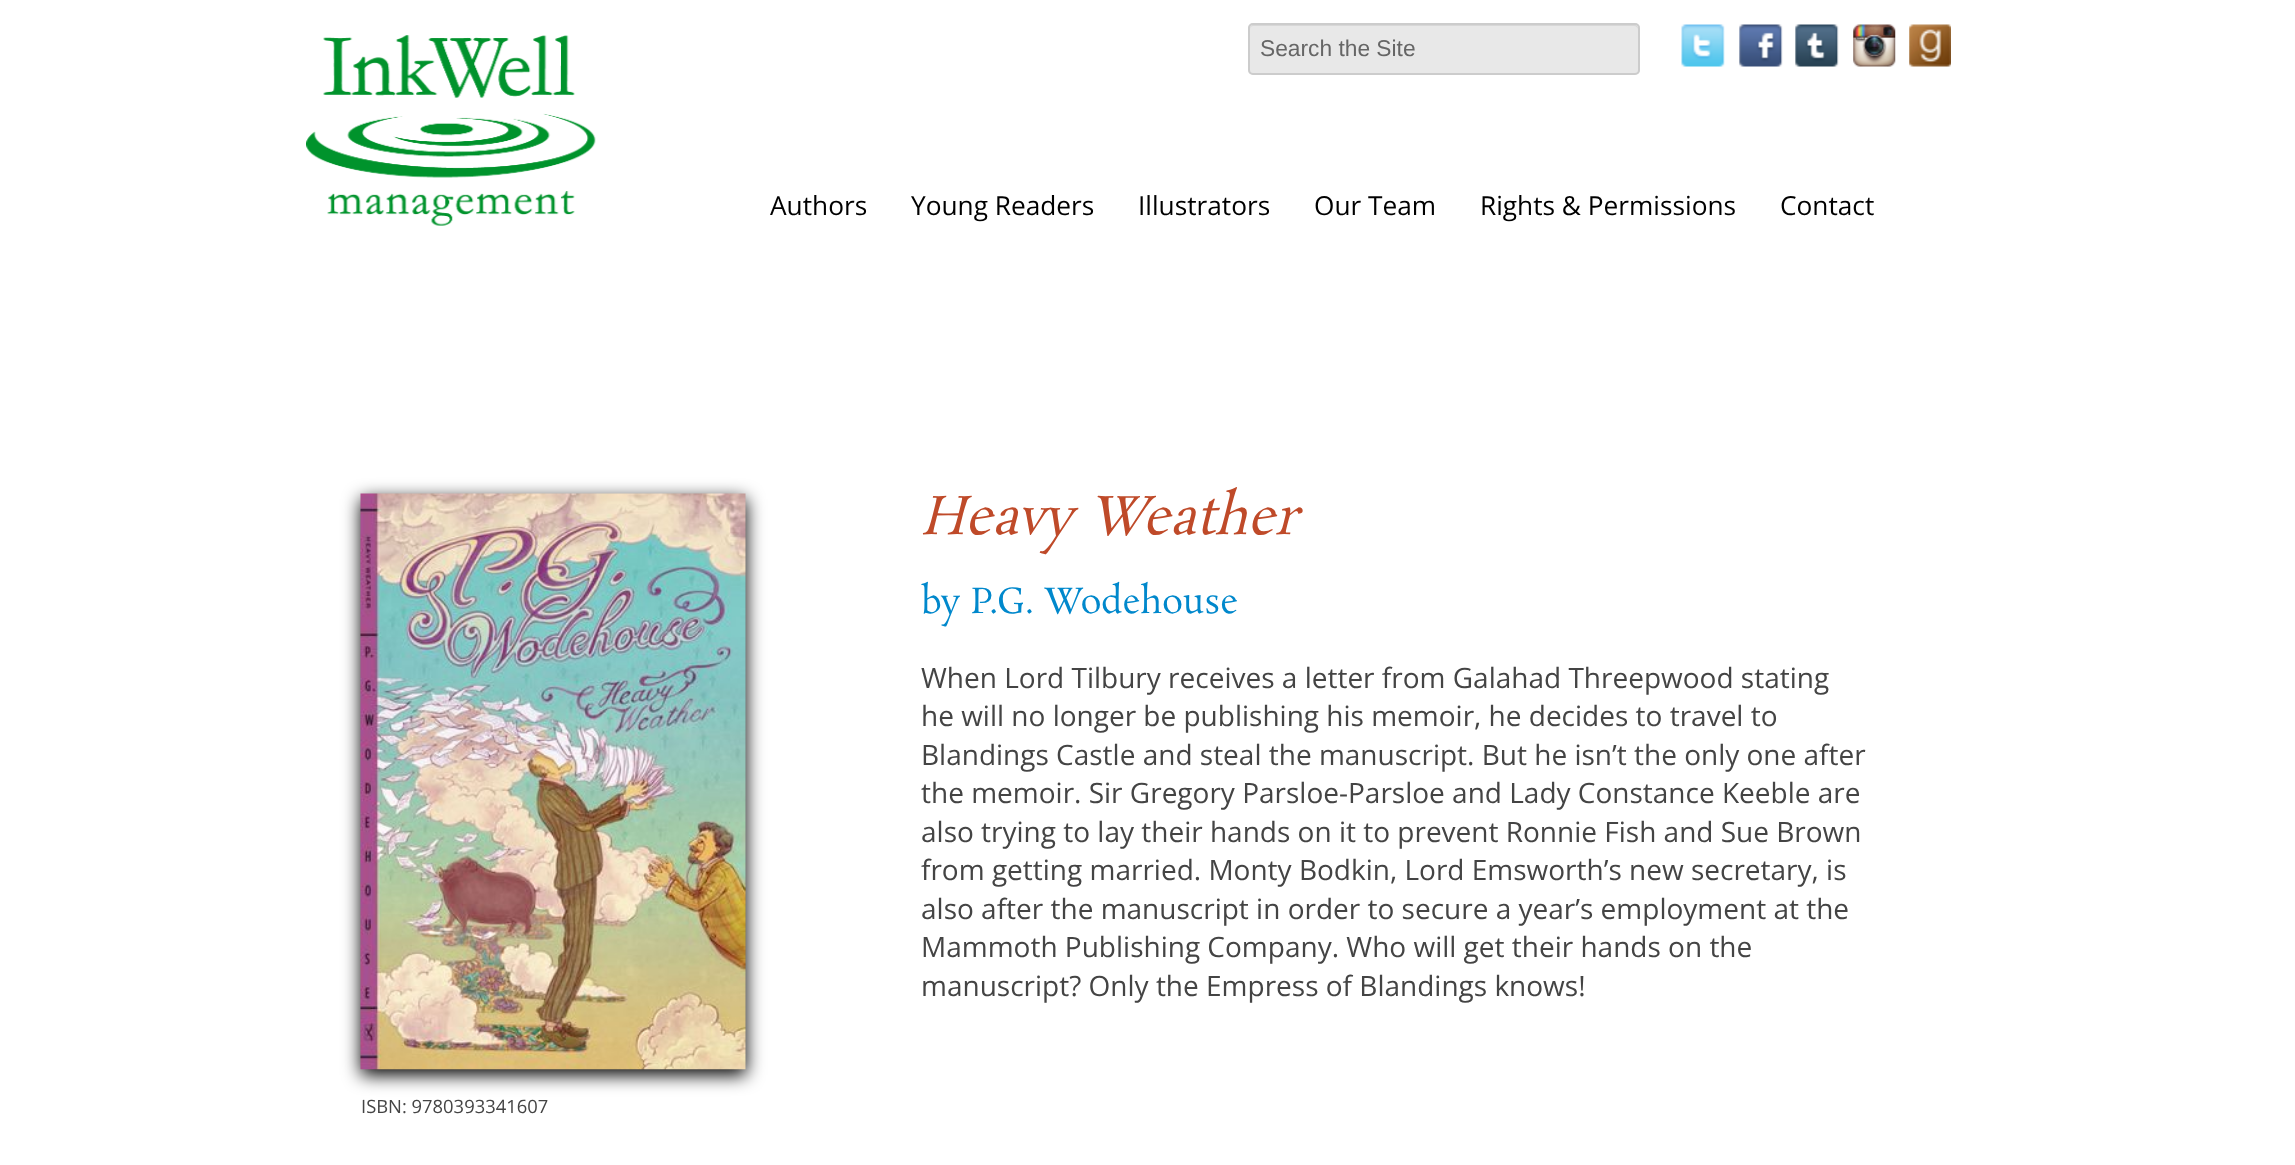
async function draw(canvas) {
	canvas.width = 2295;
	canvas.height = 1165;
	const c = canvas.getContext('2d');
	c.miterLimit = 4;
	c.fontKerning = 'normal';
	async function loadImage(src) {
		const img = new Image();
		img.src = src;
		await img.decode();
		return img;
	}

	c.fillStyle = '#fff';
	c.fillRect(0, 0, 2295, 1165);
	c.drawImage(await loadImage('img1.png'), 306, 35, 290, 191);
	c.fillStyle = '#e8e8e8';
	c.beginPath();
	c.roundRect(1248, 23, 392, 52, 5);
	c.fill();
	c.fillStyle = '#d7d7d7';
	c.beginPath();
	c.moveTo(1253, 26);
	c.lineTo(1634, 26);
	c.bezierCurveTo(1636, 26, 1638, 28, 1638, 30);
	c.bezierCurveTo(1638, 27, 1637, 25, 1634, 25);
	c.lineTo(1254, 25);
	c.bezierCurveTo(1251, 25, 1250, 27, 1250, 30);
	c.bezierCurveTo(1250, 28, 1251, 26, 1253, 26);
	c.closePath();
	c.fill();
	c.beginPath();
	c.roundRect(1249, 24, 390, 50, 4);
	c.strokeStyle = '#ccc';
	c.lineWidth = 2;
	c.stroke();
	c.font = '22.75px Liberation Sans';
	c.fillStyle = '#666';
	c.fillText('Search the Site', 1260, 56);
	c.drawImage(await loadImage('img2.png'), 1681, 24, 44, 43);
	c.drawImage(await loadImage('img3.png'), 1739, 24, 44, 43);
	c.drawImage(await loadImage('img4.png'), 1795, 24, 44, 43);
	c.drawImage(await loadImage('img5.png'), 1853, 24, 43, 43);
	c.drawImage(await loadImage('img6.png'), 1909, 24, 42, 43);
	c.font = '26.25px Open Sans';
	c.fillStyle = '#000';
	for (const [text, x, y] of [
		['Authors', 770, 215],
		['Young Readers', 911, 215],
		['Illustrators', 1138, 215],
		['Our Team', 1314, 215],
		['Rights & Permissions', 1480, 215],
		['Contact', 1780, 215],
	]) {
		c.fillText(text, x, y);
	}
	c.font = 'italic 52.5px Rosarivo';
	c.fillStyle = '#bf4a29';
	c.fillText('Heavy Weather', 921, 534);
	c.font = '35px Rosarivo';
	c.fillStyle = '#08c';
	c.fillText('by P.G. Wodehouse', 921, 613);
	c.font = '28px Open Sans';
	c.fillStyle = '#444';
	for (const [text, x, y] of [
		['When Lord Tilbury receives a letter from Galahad Threepwood stating', 921, 688],
		['he will no longer be publishing his memoir, he decides to travel to', 921, 726],
		['Blandings Castle and steal the manuscript. But he isn’t the only one after', 921, 765],
		['the memoir. Sir Gregory Parsloe-Parsloe and Lady Constance Keeble are', 921, 803],
		['also trying to lay their hands on it to prevent Ronnie Fish and Sue Brown', 921, 842],
		['from getting married. Monty Bodkin, Lord Emsworth’s new secretary, is', 921, 880],
		['also after the manuscript in order to secure a year’s employment at the', 921, 919],
		['Mammoth Publishing Company. Who will get their hands on the', 921, 957],
		['manuscript? Only the Empress of Blandings knows!', 921, 996],
	]) {
		c.fillText(text, x, y);
	}
	c.fillStyle = '#000';
	c.filter = 'blur(9px)';
	c.beginPath();
	c.rect(361, 499, 385, 576);
	c.fill();
	c.filter = 'none';
	c.drawImage(await loadImage('img7.png'), 360, 493, 386, 577);
	c.font = '18.4px Open Sans';
	c.fillStyle = '#444';
	c.fillText('ISBN: 9780393341607', 361, 1113);
}

draw(document.querySelector('canvas'));
